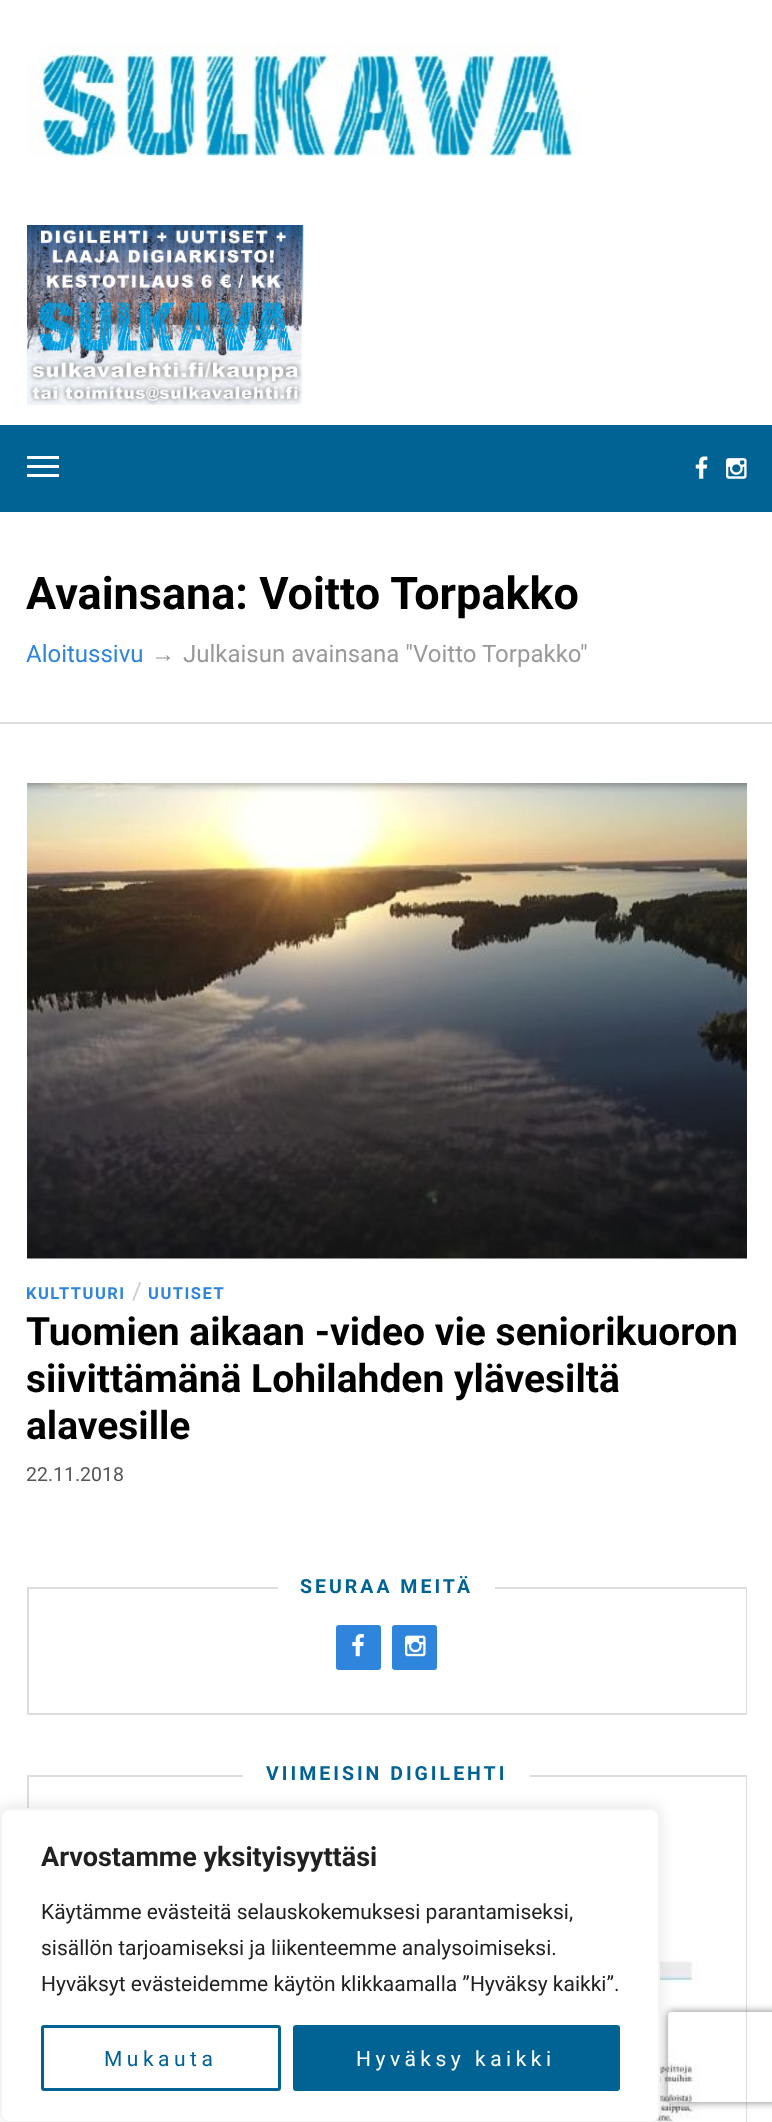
async function draw(canvas) {
	canvas.width = 772;
	canvas.height = 2122;
	const c = canvas.getContext('2d');
	c.miterLimit = 4;
	c.fontKerning = 'normal';
	async function loadImage(src) {
		const img = new Image();
		img.src = src;
		await img.decode();
		return img;
	}

	c.fillStyle = '#fff';
	c.fillRect(0, 0, 772, 2122);
	c.drawImage(await loadImage('img1.png'), 27, 43, 555, 114);
	c.drawImage(await loadImage('img2.png'), 27, 225, 277, 180);
	for (const [x, y, w, h, color] of [
		[0, 425, 772, 87, '#006394'],
		[27, 456, 32, 3, '#fff'],
		[27, 465, 32, 3, '#fff'],
		[27, 474, 32, 3, '#fff'],
	]) {
		c.fillStyle = color;
		c.fillRect(x, y, w, h);
	}
	c.drawImage(await loadImage('img3.png'), 695, 456, 13, 23);
	c.drawImage(await loadImage('img4.png'), 726, 458, 21, 21);
	c.fillStyle = '#ddd';
	c.fillRect(0, 722, 772, 2);
	c.font = 'bold 45px Roboto';
	c.fillStyle = '#000';
	c.fillText('Avainsana: Voitto Torpakko', 26, 609);
	c.font = '24px Roboto';
	c.fillStyle = '#2f85dc';
	c.fillText('Aloitussivu', 26, 662);
	c.font = '24px Liberation Sans';
	c.fillStyle = '#999';
	c.fillText('→', 151, 662);
	c.font = '24px Roboto';
	c.fillText('Julkaisun avainsana "Voitto Torpakko"', 183, 662);
	c.drawImage(await loadImage('img5.png'), 27, 783, 720, 476);
	c.letterSpacing = '1.5px';
	c.font = 'bold 16.5px Roboto';
	c.fillStyle = '#2f85dc';
	c.fillText('KULTTUURI', 26, 1299);
	c.letterSpacing = '0px';
	c.font = '24px Roboto';
	c.fillStyle = '#ccc';
	c.fillText('/', 132, 1299);
	c.letterSpacing = '1.5px';
	c.font = 'bold 16.5px Roboto';
	c.fillStyle = '#2f85dc';
	c.fillText('UUTISET', 148, 1299);
	c.letterSpacing = '0px';
	c.font = 'bold 39px Roboto';
	c.fillStyle = '#000';
	for (const [text, x, y] of [
		['Tuomien aikaan -video vie seniorikuoron', 26, 1345],
		['siivittämänä Lohilahden ylävesiltä', 26, 1392],
		['alavesille', 26, 1439],
	]) {
		c.fillText(text, x, y);
	}
	c.font = '19.5px Roboto';
	c.fillStyle = '#555';
	c.fillText('22.11.2018', 26, 1481);
	for (const [x, y, w, h, color] of [
		[746, 1587, 1, 128, '#ddd'],
		[27, 1713, 720, 2, '#ddd'],
		[27, 1587, 2, 128, '#ddd'],
		[29, 1587, 249, 2, '#ddd'],
	]) {
		c.fillStyle = color;
		c.fillRect(x, y, w, h);
	}
	c.letterSpacing = '3px';
	c.font = 'bold 19.5px Roboto';
	c.fillStyle = '#006394';
	c.fillText('SEURAA MEITÄ', 300, 1593);
	c.fillStyle = '#ddd';
	c.fillRect(495, 1587, 251, 2);
	c.fillStyle = '#2f85dc';
	c.beginPath();
	c.roundRect(336, 1625, 45, 45, 3);
	c.fill();
	c.drawImage(await loadImage('img6.png'), 352, 1633, 12, 24);
	c.beginPath();
	c.roundRect(392, 1625, 45, 45, 3);
	c.fill();
	c.drawImage(await loadImage('img7.png'), 405, 1635, 21, 22);
	for (const [x, y, w, h, color] of [
		[746, 1775, 1, 347, '#ddd'],
		[27, 1775, 2, 33, '#ddd'],
		[29, 1775, 214, 2, '#ddd'],
	]) {
		c.fillStyle = color;
		c.fillRect(x, y, w, h);
	}
	c.fillStyle = '#006394';
	c.fillText('VIIMEISIN DIGILEHTI', 266, 1780);
	c.fillStyle = '#ddd';
	c.fillRect(530, 1775, 216, 2);
	c.drawImage(await loadImage('img8.png'), 655, 1833, 45, 289);
	c.fillStyle = '#acabab4d';
	c.filter = 'blur(7.5px)';
	c.beginPath();
	c.roundRect(0, 1806, 660, 315, 9);
	c.fill();
	c.filter = 'none';
	c.save();
	c.beginPath();
	c.moveTo(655, 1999);
	c.lineTo(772, 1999);
	c.lineTo(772, 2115);
	c.lineTo(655, 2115);
	c.closePath();
	c.moveTo(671, 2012);
	c.lineTo(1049, 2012);
	c.bezierCurveTo(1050.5, 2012, 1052, 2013.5, 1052, 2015);
	c.lineTo(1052, 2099);
	c.bezierCurveTo(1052, 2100.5, 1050.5, 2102, 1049, 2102);
	c.lineTo(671, 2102);
	c.bezierCurveTo(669.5, 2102, 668, 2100.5, 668, 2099);
	c.lineTo(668, 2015);
	c.bezierCurveTo(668, 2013.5, 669.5, 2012, 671, 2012);
	c.closePath();
	c.clip('evenodd');
	c.fillStyle = '#808080';
	c.filter = 'blur(4px)';
	c.beginPath();
	c.roundRect(668, 2012, 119, 90, 3);
	c.fill();
	c.filter = 'none';
	c.restore();
	c.fillStyle = '#fff';
	c.beginPath();
	c.roundRect(1, 1809, 658, 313, 8);
	c.fill();
	c.strokeStyle = '#f4f4f4';
	c.lineWidth = 2;
	c.stroke();
	c.letterSpacing = '0px';
	c.font = 'bold 27px Roboto';
	c.fillStyle = '#212121';
	c.fillText('Arvostamme yksityisyyttäsi', 41, 1866);
	c.font = '21px Roboto';
	for (const [text, x, y] of [
		['Käytämme evästeitä selauskokemuksesi parantamiseksi,', 41, 1919],
		['sisällön tarjoamiseksi ja liikenteemme analysoimiseksi.', 41, 1955],
		['Hyväksyt evästeidemme käytön klikkaamalla ”Hyväksy kaikki”.', 41, 1991],
	]) {
		c.fillText(text, x, y);
	}
	c.beginPath();
	c.roundRect(42.5, 2026.5, 237, 63, 1.5);
	c.strokeStyle = '#006394';
	c.lineWidth = 3;
	c.stroke();
	c.letterSpacing = '4.5px';
	c.fillStyle = '#006394';
	c.fillText('Mukauta', 104, 2066);
	c.beginPath();
	c.roundRect(294.5, 2026.5, 324, 63, 1.5);
	c.fill();
	c.stroke();
	c.fillStyle = '#fff';
	c.fillText('Hyväksy kaikki', 356, 2066);
}

draw(document.querySelector('canvas'));
